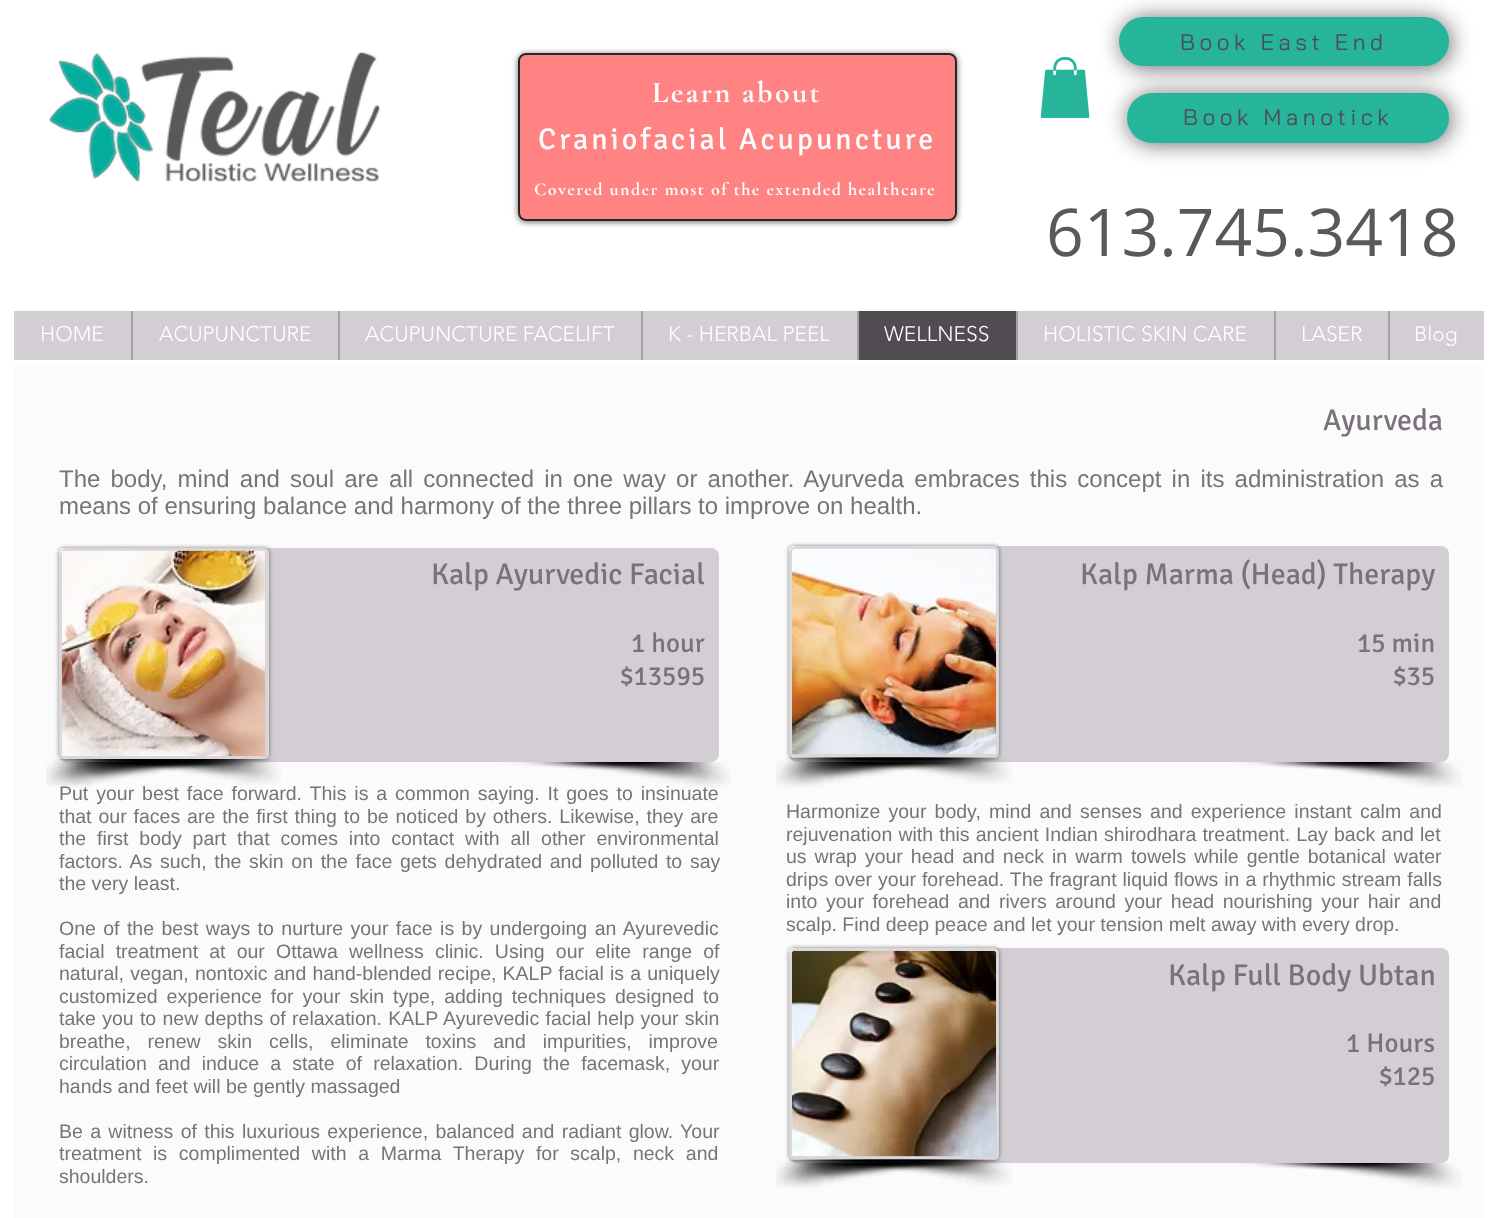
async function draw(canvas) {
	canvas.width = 1497;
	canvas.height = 1218;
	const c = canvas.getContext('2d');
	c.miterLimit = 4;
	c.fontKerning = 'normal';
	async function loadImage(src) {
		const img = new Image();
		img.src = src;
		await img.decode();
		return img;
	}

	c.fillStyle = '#fff';
	c.fillRect(0, 0, 1497, 1218);
	c.drawImage(await loadImage('img1.png'), 49, 52, 331, 130);
	c.save();
	c.beginPath();
	c.moveTo(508, 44);
	c.lineTo(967, 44);
	c.lineTo(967, 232);
	c.lineTo(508, 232);
	c.closePath();
	c.moveTo(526, 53);
	c.lineTo(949, 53);
	c.bezierCurveTo(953.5, 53, 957, 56.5, 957, 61);
	c.lineTo(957, 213);
	c.bezierCurveTo(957, 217.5, 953.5, 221, 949, 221);
	c.lineTo(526, 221);
	c.bezierCurveTo(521.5, 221, 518, 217.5, 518, 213);
	c.lineTo(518, 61);
	c.bezierCurveTo(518, 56.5, 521.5, 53, 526, 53);
	c.closePath();
	c.clip('evenodd');
	c.fillStyle = '#00000099';
	c.filter = 'blur(3px)';
	c.beginPath();
	c.roundRect(518, 54, 439, 168, 8);
	c.fill();
	c.filter = 'none';
	c.restore();
	c.fillStyle = '#ff4040a6';
	c.beginPath();
	c.roundRect(519, 54, 437, 166, 7);
	c.fill();
	c.strokeStyle = '#282629';
	c.lineWidth = 2;
	c.stroke();
	c.drawImage(await loadImage('img2.png'), 1040, 57, 50, 61);
	c.fillStyle = '#00000096';
	c.filter = 'blur(11px)';
	c.beginPath();
	c.roundRect(1121, 18, 330, 50, 25);
	c.fill();
	c.filter = 'none';
	c.fillStyle = '#26b59b';
	c.beginPath();
	c.roundRect(1119, 17, 330, 49, 24.5);
	c.fill();
	c.letterSpacing = '4.5px';
	c.font = '22.5px Bai Jamjuree';
	c.fillStyle = '#514c52';
	c.fillText('Book East End', 1180, 50);
	c.letterSpacing = '2.4px';
	c.font = 'bold 30px Cormorant Garamond';
	c.fillStyle = '#fff';
	c.fillText('Learn about', 652, 102);
	c.letterSpacing = '3px';
	c.font = '30px Signika';
	c.fillText('Craniofacial Acupuncture', 538, 149);
	c.letterSpacing = '1.45px';
	c.font = 'bold 18px Cormorant Garamond';
	c.fillText('Covered under most of the extended healthcare', 534, 195);
	c.fillStyle = '#00000096';
	c.filter = 'blur(11px)';
	c.beginPath();
	c.roundRect(1128, 95, 323, 49, 24.5);
	c.fill();
	c.filter = 'none';
	c.fillStyle = '#26b59b';
	c.beginPath();
	c.roundRect(1127, 93, 322, 50, 25);
	c.fill();
	c.letterSpacing = '4.5px';
	c.font = '22.5px Bai Jamjuree';
	c.fillStyle = '#514c52';
	c.fillText('Book Manotick', 1183, 125);
	c.letterSpacing = '0px';
	c.font = '66px Open Sans';
	c.fillStyle = '#58595b';
	c.fillText('613.745.3418', 1046, 256);
	c.fillStyle = '#d2ced3';
	c.fillRect(14, 311, 1470, 49);
	c.font = '300 21px "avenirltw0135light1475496"';
	c.fillStyle = '#fff';
	c.fillText('HOME', 40, 341);
	c.fillStyle = '#a6a1a7';
	c.fillRect(131, 311, 2, 49);
	c.fillStyle = '#fff';
	c.fillText('ACUPUNCTURE', 159, 341);
	c.fillStyle = '#a6a1a7';
	c.fillRect(338, 311, 2, 49);
	c.fillStyle = '#fff';
	c.fillText('ACUPUNCTURE FACELIFT', 365, 341);
	c.fillStyle = '#a6a1a7';
	c.fillRect(641, 311, 2, 49);
	c.fillStyle = '#fff';
	c.fillText('K - HERBAL PEEL', 668, 341);
	c.fillStyle = '#514c52';
	c.fillRect(859, 311, 157, 49);
	c.fillStyle = '#a6a1a7';
	c.fillRect(857, 311, 2, 49);
	c.fillStyle = '#fff';
	c.fillText('WELLNESS', 884, 341);
	c.fillStyle = '#a6a1a7';
	c.fillRect(1016, 311, 2, 49);
	c.fillStyle = '#fff';
	c.fillText('HOLISTIC SKIN CARE', 1043, 341);
	c.fillStyle = '#a6a1a7';
	c.fillRect(1274, 311, 2, 49);
	c.fillStyle = '#fff';
	c.fillText('LASER', 1301, 341);
	c.fillStyle = '#a6a1a7';
	c.fillRect(1388, 311, 2, 49);
	c.fillStyle = '#fff';
	c.fillText('Blog', 1414, 341);
	c.fillStyle = '#fcfbfc';
	c.fillRect(14, 365, 1470, 853);
	c.font = '30px Signika';
	c.fillStyle = '#79727a';
	c.fillText('Ayurveda', 1323, 430);
	c.wordSpacing = '3.5px';
	c.font = '24px Liberation Sans';
	c.fillText('The body, mind and soul are all connected in one way or another. Ayurveda embraces this concept in its administration as a', 59, 487);
	c.wordSpacing = '0px';
	c.fillText('means of ensuring balance and harmony of the three pillars to improve on health.', 59, 514);
	c.fillStyle = '#d2ced3';
	c.beginPath();
	c.roundRect(59, 548, 660, 214, 8);
	c.fill();
	c.drawImage(await loadImage('img6.png'), 46, 762, 230, 26);
	c.save();
	c.beginPath();
	c.moveTo(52, 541);
	c.lineTo(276, 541);
	c.lineTo(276, 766);
	c.lineTo(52, 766);
	c.closePath();
	c.moveTo(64, 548);
	c.lineTo(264, 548);
	c.bezierCurveTo(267, 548, 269, 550, 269, 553);
	c.lineTo(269, 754);
	c.bezierCurveTo(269, 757, 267, 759, 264, 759);
	c.lineTo(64, 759);
	c.bezierCurveTo(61, 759, 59, 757, 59, 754);
	c.lineTo(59, 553);
	c.bezierCurveTo(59, 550, 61, 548, 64, 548);
	c.closePath();
	c.clip('evenodd');
	c.fillStyle = '#00000080';
	c.filter = 'blur(2px)';
	c.beginPath();
	c.roundRect(59, 548, 210, 211, 5);
	c.fill();
	c.filter = 'none';
	c.restore();
	c.fillStyle = '#ffffff1a';
	c.beginPath();
	c.roundRect(59, 548, 210, 211, 5);
	c.fill();
	c.beginPath();
	c.roundRect(60.5, 549.5, 207, 208, 3.5);
	c.strokeStyle = '#ffffff1a';
	c.lineWidth = 3;
	c.stroke();
	c.drawImage(await loadImage('img3.png'), 61, 550, 205, 206);
	c.drawImage(await loadImage('img4.png'), 46, 759, 230, 26);
	c.drawImage(await loadImage('img5.png'), 51, 759, 230, 26);
	c.font = '30px Signika';
	c.fillStyle = '#79727a';
	c.fillText('Kalp Ayurvedic Facial', 431, 584);
	c.font = '27px Signika';
	c.fillText('1 hour', 631, 652);
	c.fillText('$13595', 620, 685);
	c.drawImage(await loadImage('img7.png'), 501, 762, 230, 26);
	c.fillStyle = '#d2ced3';
	c.beginPath();
	c.roundRect(789, 546, 660, 216, 8);
	c.fill();
	c.drawImage(await loadImage('img11.png'), 776, 762, 230, 26);
	c.save();
	c.beginPath();
	c.moveTo(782, 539);
	c.lineTo(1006, 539);
	c.lineTo(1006, 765);
	c.lineTo(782, 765);
	c.closePath();
	c.moveTo(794, 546);
	c.lineTo(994, 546);
	c.bezierCurveTo(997, 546, 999, 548, 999, 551);
	c.lineTo(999, 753);
	c.bezierCurveTo(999, 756, 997, 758, 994, 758);
	c.lineTo(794, 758);
	c.bezierCurveTo(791, 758, 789, 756, 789, 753);
	c.lineTo(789, 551);
	c.bezierCurveTo(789, 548, 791, 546, 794, 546);
	c.closePath();
	c.clip('evenodd');
	c.fillStyle = '#00000080';
	c.filter = 'blur(2px)';
	c.beginPath();
	c.roundRect(789, 546, 210, 212, 5);
	c.fill();
	c.filter = 'none';
	c.restore();
	c.fillStyle = '#ffffff1a';
	c.beginPath();
	c.roundRect(789, 546, 210, 212, 5);
	c.fill();
	c.beginPath();
	c.roundRect(790.5, 547.5, 207, 209, 3.5);
	c.stroke();
	c.drawImage(await loadImage('img8.png'), 792, 549, 204, 206);
	c.drawImage(await loadImage('img9.png'), 776, 757, 223, 27);
	c.drawImage(await loadImage('img10.png'), 789, 757, 223, 27);
	c.font = '30px Signika';
	c.fillStyle = '#79727a';
	c.fillText('Kalp Marma (Head) Therapy', 1080, 584);
	c.font = '27px Signika';
	c.fillText('15 min', 1357, 652);
	c.fillText('$35', 1393, 685);
	c.drawImage(await loadImage('img12.png'), 1232, 762, 230, 26);
	c.wordSpacing = '2.5px';
	c.font = '19.5px Liberation Sans';
	c.fillText('Put your best face forward. This is a common saying. It goes to insinuate', 59, 800);
	c.wordSpacing = '1.5px';
	c.fillText('that our faces are the first thing to be noticed by others. Likewise, they are', 59, 823);
	c.wordSpacing = '5.5px';
	c.fillText('the first body part that comes into contact with all other environmental', 59, 845);
	c.wordSpacing = '2.25px';
	c.fillText('factors. As such, the skin on the face gets dehydrated and polluted to say', 59, 868);
	c.wordSpacing = '0px';
	c.fillText('the very least.', 59, 890);
	c.wordSpacing = '2px';
	c.fillText('One of the best ways to nurture your face is by undergoing an Ayurevedic', 59, 935);
	c.wordSpacing = '5.75px';
	c.fillText('facial treatment at our Ottawa wellness clinic. Using our elite range of', 59, 958);
	c.wordSpacing = '0.75px';
	c.fillText('natural, vegan, nontoxic and hand-blended recipe, KALP facial is a uniquely', 59, 980);
	c.wordSpacing = '3.5px';
	c.fillText('customized experience for your skin type, adding techniques designed to', 59, 1003);
	c.wordSpacing = '0.9px';
	c.fillText('take you to new depths of relaxation. KALP Ayurevedic facial help your skin', 59, 1025);
	c.wordSpacing = '11.5px';
	c.fillText('breathe, renew skin cells, eliminate toxins and impurities, improve', 59, 1048);
	c.wordSpacing = '5.75px';
	c.fillText('circulation and induce a state of relaxation. During the facemask, your', 59, 1070);
	c.wordSpacing = '0px';
	c.fillText('hands and feet will be gently massaged', 59, 1093);
	c.wordSpacing = '1.9px';
	c.fillText('Be a witness of this luxurious experience, balanced and radiant glow. Your', 59, 1138);
	c.wordSpacing = '6.25px';
	c.fillText('treatment is complimented with a Marma Therapy for scalp, neck and', 59, 1160);
	c.wordSpacing = '0px';
	c.fillText('shoulders.', 59, 1183);
	c.wordSpacing = '2.75px';
	c.fillText('Harmonize your body, mind and senses and experience instant calm and', 786, 818);
	c.wordSpacing = '0.75px';
	c.fillText('rejuvenation with this ancient Indian shirodhara treatment. Lay back and let', 786, 841);
	c.wordSpacing = '2.6px';
	c.fillText('us wrap your head and neck in warm towels while gentle botanical water', 786, 863);
	c.wordSpacing = '0.5px';
	c.fillText('drips over your forehead. The fragrant liquid flows in a rhythmic stream falls', 786, 886);
	c.wordSpacing = '3.1px';
	c.fillText('into your forehead and rivers around your head nourishing your hair and', 786, 908);
	c.wordSpacing = '0px';
	c.fillText('scalp. Find deep peace and let your tension melt away with every drop.', 786, 931);
	c.drawImage(await loadImage('img16.png'), 776, 1162, 223, 27);
	c.drawImage(await loadImage('img17.png'), 1239, 1162, 223, 27);
	c.fillStyle = '#d2ced3';
	c.beginPath();
	c.roundRect(789, 948, 660, 215, 8);
	c.fill();
	c.save();
	c.beginPath();
	c.moveTo(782, 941);
	c.lineTo(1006, 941);
	c.lineTo(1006, 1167);
	c.lineTo(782, 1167);
	c.closePath();
	c.moveTo(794, 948);
	c.lineTo(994, 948);
	c.bezierCurveTo(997, 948, 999, 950, 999, 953);
	c.lineTo(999, 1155);
	c.bezierCurveTo(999, 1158, 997, 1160, 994, 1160);
	c.lineTo(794, 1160);
	c.bezierCurveTo(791, 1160, 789, 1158, 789, 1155);
	c.lineTo(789, 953);
	c.bezierCurveTo(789, 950, 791, 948, 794, 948);
	c.closePath();
	c.clip('evenodd');
	c.fillStyle = '#00000080';
	c.filter = 'blur(2px)';
	c.beginPath();
	c.roundRect(789, 948, 210, 212, 5);
	c.fill();
	c.filter = 'none';
	c.restore();
	c.fillStyle = '#ffffff1a';
	c.beginPath();
	c.roundRect(789, 948, 210, 212, 5);
	c.fill();
	c.beginPath();
	c.roundRect(790.5, 949.5, 207, 209, 3.5);
	c.stroke();
	c.drawImage(await loadImage('img13.png'), 792, 951, 204, 206);
	c.drawImage(await loadImage('img14.png'), 776, 1159, 223, 27);
	c.drawImage(await loadImage('img15.png'), 789, 1159, 223, 27);
	c.font = '30px Signika';
	c.fillStyle = '#79727a';
	c.fillText('Kalp Full Body Ubtan', 1168, 985);
	c.font = '27px Signika';
	c.fillText('1 Hours', 1346, 1052);
	c.fillText('$125', 1379, 1085);
}

draw(document.querySelector('canvas'));
